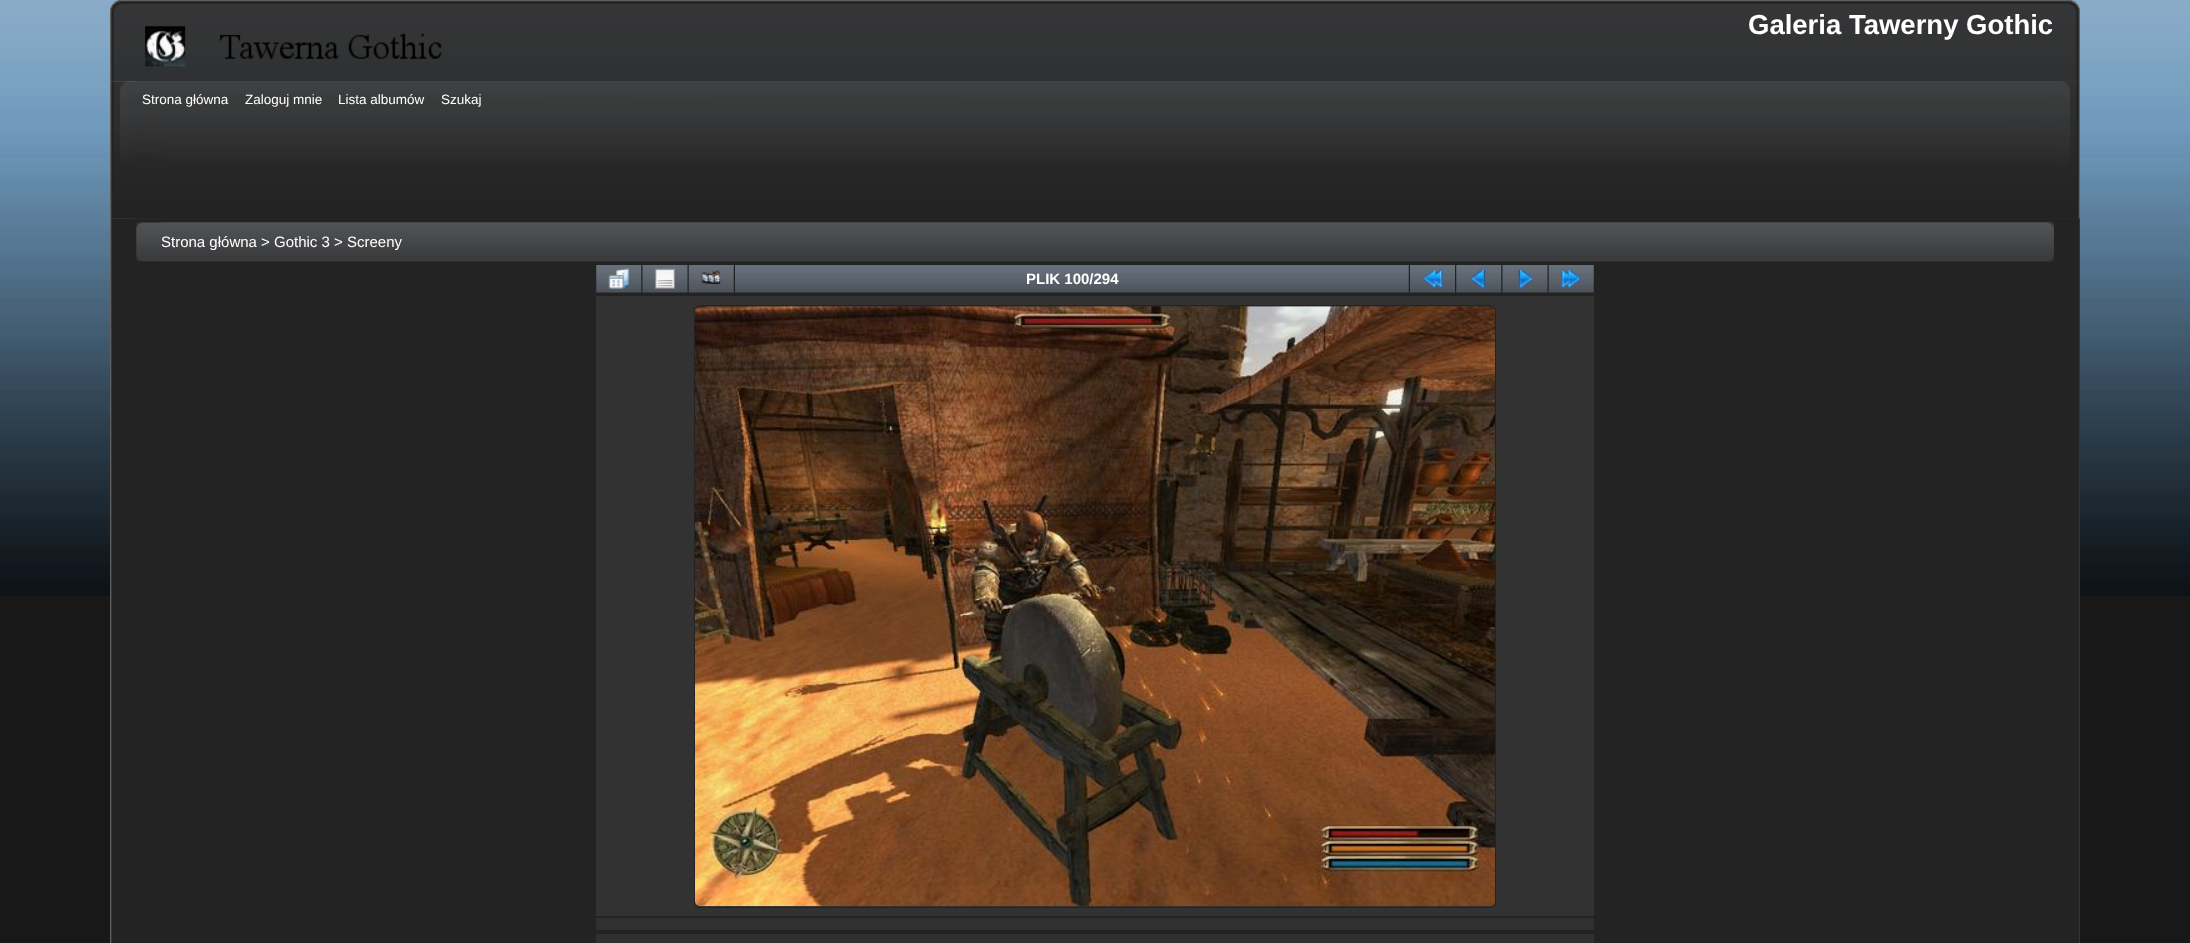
async function draw(canvas) {
	canvas.width = 2190;
	canvas.height = 943;
	const c = canvas.getContext('2d');
	c.miterLimit = 4;
	c.fontKerning = 'normal';
	async function loadImage(src) {
		const img = new Image();
		img.src = src;
		await img.decode();
		return img;
	}

	c.fillStyle = '#181818';
	c.fillRect(0, 0, 2190, 943);
	c.drawImage(await loadImage('img1.png'), 0, 0, 2190, 596);
	c.drawImage(await loadImage('img2.png'), 110, 0, 1970, 82);
	c.drawImage(await loadImage('img3.png'), 135, 0, 1945, 82);
	c.drawImage(await loadImage('img4.png'), 145, 26, 297, 41);
	c.font = 'bold 27.5px Liberation Sans';
	c.fillStyle = '#fff';
	c.fillText('Galeria Tawerny Gothic', 1748, 34);
	c.drawImage(await loadImage('img5.png'), 110, 81, 1970, 138);
	c.drawImage(await loadImage('img6.png'), 135, 81, 1945, 138);
	c.font = '13.5px Liberation Sans';
	for (const [text, x, y] of [
		['Strona główna', 142, 104],
		['Zaloguj mnie', 245, 104],
		['Lista albumów', 338, 104],
		['Szukaj', 441, 104],
	]) {
		c.fillText(text, x, y);
	}
	c.drawImage(await loadImage('img7.png'), 110, 218, 1970, 725);
	c.drawImage(await loadImage('img8.png'), 2079, 218, 1, 725);
	c.drawImage(await loadImage('img9.png'), 136, 222, 1918, 40);
	c.drawImage(await loadImage('img10.png'), 161, 222, 1893, 40);
	c.font = '15px Liberation Sans';
	c.fillText('Strona główna > Gothic 3 > Screeny', 161, 247);
	c.drawImage(await loadImage('img11.png'), 596, 265, 46, 28);
	c.drawImage(await loadImage('img12.png'), 608, 268, 21, 21);
	c.drawImage(await loadImage('img13.png'), 642, 265, 46, 28);
	c.drawImage(await loadImage('img14.png'), 655, 268, 20, 21);
	c.drawImage(await loadImage('img15.png'), 688, 265, 46, 28);
	c.drawImage(await loadImage('img16.png'), 701, 270, 20, 15);
	c.drawImage(await loadImage('img17.png'), 735, 265, 674, 28);
	c.font = 'bold 15px Liberation Sans';
	c.fillText('PLIK 100/294', 1026, 284);
	c.drawImage(await loadImage('img18.png'), 1410, 265, 45, 28);
	c.drawImage(await loadImage('img19.png'), 1422, 268, 21, 21);
	c.drawImage(await loadImage('img11.png'), 1456, 265, 46, 28);
	c.drawImage(await loadImage('img20.png'), 1470, 268, 16, 21);
	c.drawImage(await loadImage('img13.png'), 1502, 265, 46, 28);
	c.drawImage(await loadImage('img21.png'), 1518, 268, 16, 21);
	c.drawImage(await loadImage('img15.png'), 1548, 265, 46, 28);
	c.drawImage(await loadImage('img22.png'), 1561, 268, 21, 21);
	c.fillStyle = '#323232';
	c.fillRect(596, 296, 998, 620);
	c.beginPath();
	c.roundRect(694.5, 305.5, 801, 602, 5.5);
	c.strokeStyle = '#232323';
	c.stroke();
	c.drawImage(await loadImage('img23.png'), 695, 306, 800, 601);
	c.fillStyle = '#303030';
	c.fillRect(596, 918, 998, 12);
	c.fillRect(596, 934, 998, 9);
}

draw(document.querySelector('canvas'));
